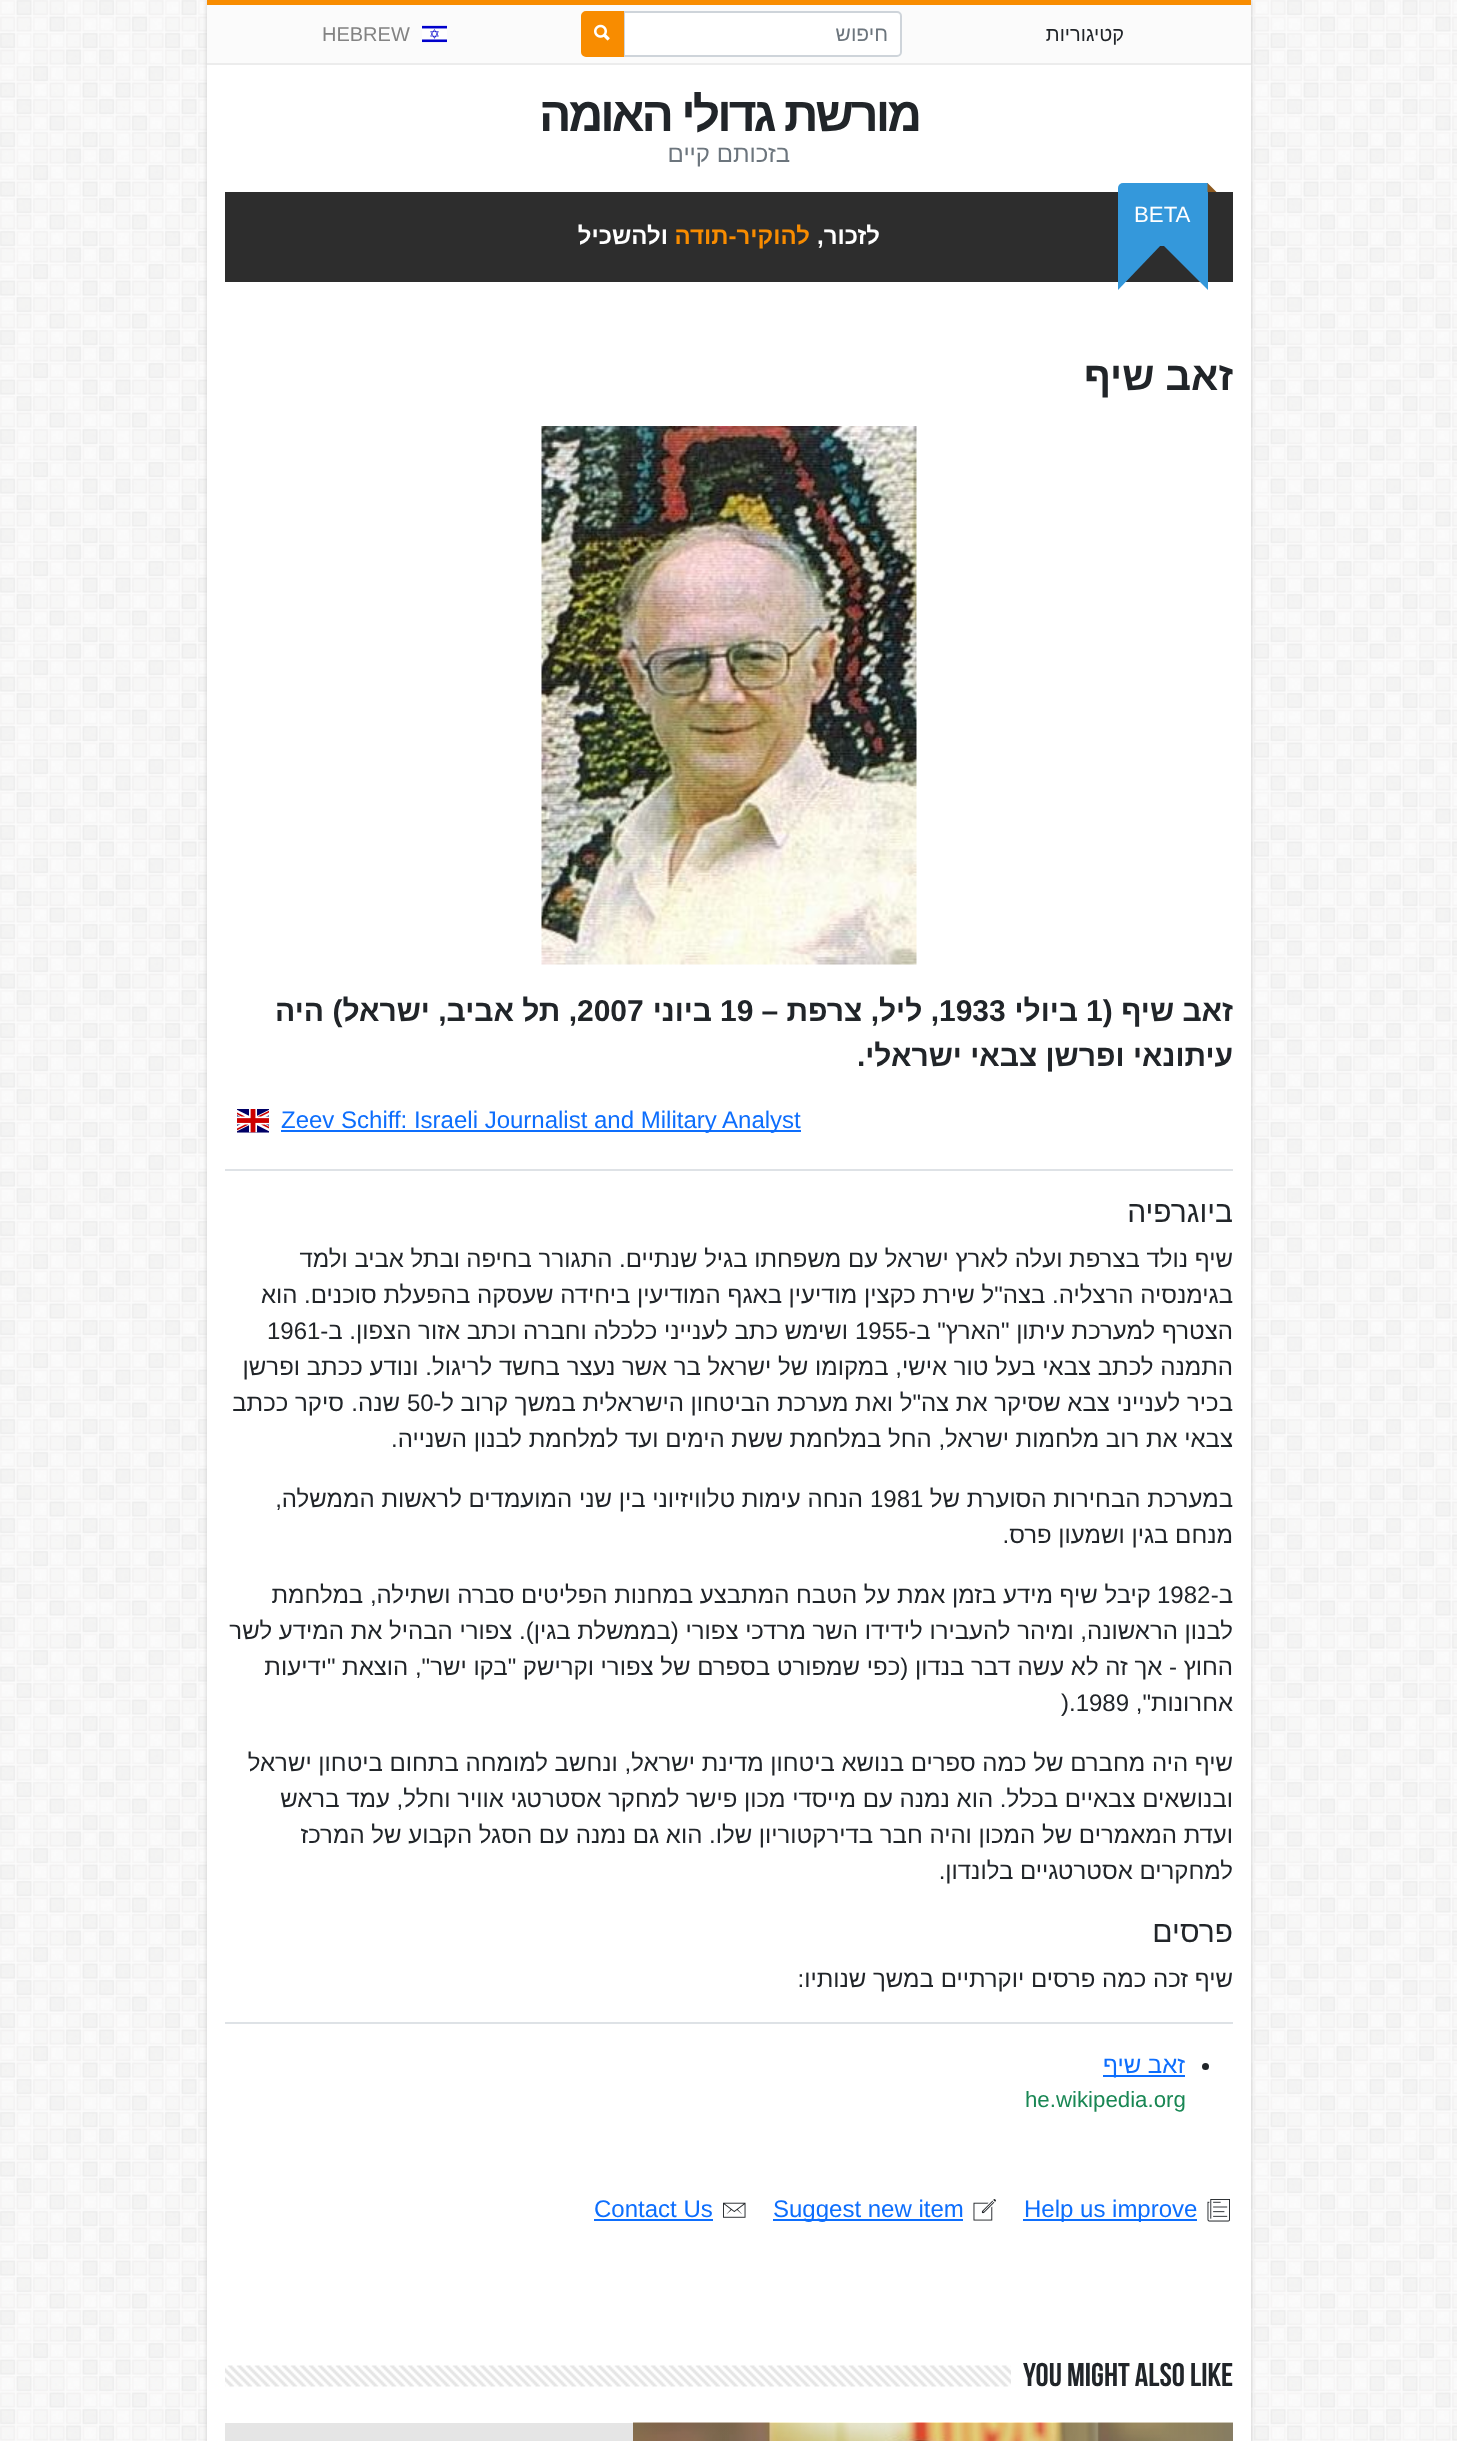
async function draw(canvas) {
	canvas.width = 1457;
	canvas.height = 2441;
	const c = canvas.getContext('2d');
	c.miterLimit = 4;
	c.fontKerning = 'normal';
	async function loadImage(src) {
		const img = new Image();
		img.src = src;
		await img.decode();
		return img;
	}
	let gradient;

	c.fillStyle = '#fff';
	c.fillRect(0, 0, 1457, 2441);
	c.drawImage(await loadImage('img1.png'), 0, 0, 1457, 2441);
	c.fillStyle = '#cacaca';
	c.filter = 'blur(2px)';
	c.beginPath();
	c.rect(207, 0, 1044, 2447);
	c.fill();
	c.filter = 'none';
	for (const [x, y, w, h, color] of [
		[207, 65, 1044, 2376, '#fff'],
		[207, 0, 1044, 5, '#f88c00'],
		[207, 5, 1044, 58, '#fbfbfb'],
		[207, 63, 1044, 2, '#ececec'],
	]) {
		c.fillStyle = color;
		c.fillRect(x, y, w, h);
	}
	c.direction = 'rtl';
	c.font = '20px Liberation Sans';
	c.fillStyle = '#212529';
	c.fillText('קטיגוריות', 1124, 41);
	c.fillStyle = '#fff';
	c.beginPath();
	c.roundRect(624, 12, 277, 44, [0, 4, 4, 0]);
	c.fill();
	c.strokeStyle = '#ced4da';
	c.lineWidth = 2;
	c.stroke();
	c.font = '21px Liberation Sans';
	c.fillStyle = '#6c757d';
	c.fillText('חיפוש', 888, 41);
	c.fillStyle = '#f88c00';
	c.beginPath();
	c.roundRect(582, 12, 41, 44, [4, 0, 0, 4]);
	c.fill();
	c.strokeStyle = '#f88c00';
	c.stroke();
	c.drawImage(await loadImage('img2.png'), 594, 24, 16, 17);
	c.drawImage(await loadImage('img3.png'), 422, 25, 25, 18);
	c.direction = 'ltr';
	c.font = '20px Liberation Sans';
	c.fillStyle = '#838383';
	c.fillText('HEBREW', 322, 41);
	c.letterSpacing = '-3px';
	c.direction = 'rtl';
	c.font = 'bold 48px Liberation Sans';
	c.fillStyle = '#212529';
	c.fillText('מורשת גדולי האומה', 919, 131);
	c.letterSpacing = '0px';
	c.font = '24px Liberation Sans';
	c.fillStyle = '#6c757d';
	c.fillText('בזכותם קיים', 790, 162);
	c.fillStyle = '#2d2d2d';
	c.fillRect(225, 192, 1008, 90);
	c.fillStyle = '#3498db';
	c.beginPath();
	c.roundRect(1118, 183, 90, 63, [5, 0, 0, 0]);
	c.fill();
	c.fillStyle = '#8d5a20';
	c.beginPath();
	c.moveTo(1216.5, 192);
	c.lineTo(1207.5, 192);
	c.lineTo(1207.5, 183);
	c.closePath();
	c.fill();
	c.direction = 'ltr';
	c.font = '22.25px Liberation Sans';
	c.fillStyle = '#fff';
	c.fillText('BETA', 1134, 222);
	c.fillStyle = '#3498db';
	c.beginPath();
	c.moveTo(1208, 244);
	c.lineTo(1208, 290);
	c.lineTo(1162, 244);
	c.closePath();
	c.fill();
	c.beginPath();
	c.moveTo(1118, 290);
	c.lineTo(1118, 244);
	c.lineTo(1162, 244);
	c.closePath();
	c.fill();
	c.direction = 'rtl';
	c.font = 'bold 24px Liberation Sans';
	c.fillStyle = '#fff';
	c.fillText('לזכור,', 880, 244);
	c.fillStyle = '#f88c00';
	c.fillText('להוקיר-תודה', 810, 244);
	c.fillStyle = '#fff';
	c.fillText('ולהשכיל', 668, 244);
	c.font = 'bold 40px Liberation Sans';
	c.fillStyle = '#212529';
	c.fillText('זאב שיף', 1233, 390);
	c.drawImage(await loadImage('img4.png'), 541, 426, 376, 539);
	c.direction = 'ltr';
	c.font = 'bold 30px Liberation Sans';
	c.fillText('1', 1086, 1021);
	c.direction = 'rtl';
	c.fillText('זאב שיף (', 1233, 1021);
	c.fillText('ביולי', 1078, 1021);
	c.direction = 'ltr';
	c.fillText('1933', 939, 1021);
	c.direction = 'rtl';
	c.fillText(', ליל, צרפת –', 939, 1021);
	c.direction = 'ltr';
	c.fillText('19', 720, 1021);
	c.direction = 'rtl';
	c.fillText('ביוני', 712, 1021);
	c.direction = 'ltr';
	c.fillText('2007', 577, 1021);
	c.direction = 'rtl';
	c.fillText(', תל אביב, ישראל) היה', 577, 1021);
	c.fillText('עיתונאי ופרשן צבאי ישראלי.', 1233, 1066);
	c.fillStyle = '#0d6efd';
	c.fillRect(281, 1130, 520, 2);
	c.direction = 'ltr';
	c.font = '24px Liberation Sans';
	c.fillText('Zeev Schiff: Israeli Journalist and Military Analyst', 281, 1128);
	c.drawImage(await loadImage('img5.png'), 237, 1109, 32, 24);
	c.fillStyle = '#dee2e6';
	c.fillRect(225, 1169, 1008, 2);
	c.direction = 'rtl';
	c.font = '30px Liberation Sans';
	c.fillStyle = '#212529';
	c.fillText('ביוגרפיה', 1233, 1222);
	c.font = '24px Liberation Sans';
	for (const [text, x, y] of [
		['שיף נולד בצרפת ועלה לארץ ישראל עם משפחתו בגיל שנתיים. התגורר בחיפה', 1233, 1267],
		['ובתל אביב ולמד', 460, 1267],
		['בגימנסיה הרצליה. בצה"ל שירת כקצין מודיעין', 1233, 1303],
		['באגף המודיעין ביחידה שעסקה בהפעלת סוכנים. הוא', 782, 1303],
		['הצטרף למערכת עיתון "הארץ" ב-', 1233, 1339],
	]) {
		c.fillText(text, x, y);
	}
	c.direction = 'ltr';
	c.fillText('1955', 855, 1339);
	c.direction = 'rtl';
	c.fillText('ושימש כתב לענייני כלכלה וחברה וכתב אזור הצפון. ב-', 848, 1339);
	c.direction = 'ltr';
	c.fillText('1961', 267, 1339);
	c.direction = 'rtl';
	c.fillText('התמנה לכתב צבאי בעל טור אישי, במקומו של ישראל בר אשר נעצר בחשד לריגול. ונודע ככתב ופרשן', 1233, 1375);
	c.fillText('בכיר לענייני צבא שסיקר את צה"ל ואת מערכת הביטחון הישראלית במשך קרוב ל-', 1233, 1411);
	c.direction = 'ltr';
	c.fillText('50', 407, 1411);
	c.direction = 'rtl';
	for (const [text, x, y] of [
		['שנה.', 400, 1411],
		['סיקר ככתב', 344, 1411],
		['צבאי את רוב מלחמות ישראל, החל במלחמת ששת הימים ועד למלחמת לבנון השנייה.', 1233, 1447],
		['במערכת הבחירות הסוערת של', 1233, 1507],
	]) {
		c.fillText(text, x, y);
	}
	c.direction = 'ltr';
	c.fillText('1981', 870, 1507);
	c.direction = 'rtl';
	for (const [text, x, y] of [
		['הנחה עימות טלוויזיוני בין שני המועמדים לראשות הממשלה,', 863, 1507],
		['מנחם בגין ושמעון פרס.', 1233, 1543],
		['ב-', 1233, 1603],
	]) {
		c.fillText(text, x, y);
	}
	c.direction = 'ltr';
	c.fillText('1982', 1157, 1603);
	c.direction = 'rtl';
	for (const [text, x, y] of [
		['קיבל שיף מידע בזמן אמת על הטבח המתבצע במחנות הפליטים סברה ושתילה, במלחמת', 1151, 1603],
		['לבנון הראשונה, ומיהר להעבירו לידידו השר מרדכי צפורי (בממשלת בגין). צפורי הבהיל את המידע לשר', 1233, 1639],
		['החוץ - אך זה לא עשה דבר בנדון (כפי שמפורט בספרם של צפורי וקרישק "בקו ישר", הוצאת "ידיעות', 1233, 1675],
		['אחרונות",', 1233, 1711],
	]) {
		c.fillText(text, x, y);
	}
	c.direction = 'ltr';
	c.fillText(').1989', 1061, 1711);
	c.direction = 'rtl';
	for (const [text, x, y] of [
		['שיף היה מחברם של כמה ספרים בנושא ביטחון מדינת ישראל, ונחשב למומחה בתחום ביטחון ישראל', 1233, 1771],
		['ובנושאים צבאיים בכלל. הוא נמנה עם מייסדי מכון פישר למחקר אסטרטגי אוויר וחלל, עמד בראש', 1233, 1807],
		['ועדת המאמרים של המכון והיה חבר בדירקטוריון שלו. הוא גם נמנה עם הסגל הקבוע של המרכז', 1233, 1843],
		['למחקרים אסטרטגיים בלונדון.', 1233, 1879],
	]) {
		c.fillText(text, x, y);
	}
	c.font = '30px Liberation Sans';
	c.fillText('פרסים', 1233, 1942);
	c.font = '24px Liberation Sans';
	c.fillText('שיף זכה כמה פרסים יוקרתיים במשך שנותיו:', 1233, 1987);
	c.fillStyle = '#dee2e6';
	c.fillRect(225, 2022, 1008, 2);
	c.fillStyle = '#212529';
	c.beginPath();
	c.arc(1205.5, 2066.5, 3.5, 0, 2 * Math.PI);
	c.fill();
	c.fillStyle = '#0d6efd';
	c.fillRect(1103, 2075, 82, 2);
	c.fillText('זאב שיף', 1185, 2073);
	c.direction = 'ltr';
	c.font = '22.25px Liberation Sans';
	c.fillStyle = '#198754';
	c.fillText('he.wikipedia.org', 1025, 2107);
	c.drawImage(await loadImage('img6.png'), 1207, 2199, 23, 23);
	c.fillStyle = '#0d6efd';
	c.fillRect(1023, 2219, 174, 2);
	c.font = '24px Liberation Sans';
	c.fillText('Help us improve', 1024, 2217);
	c.drawImage(await loadImage('img7.png'), 973, 2199, 23, 22);
	c.fillRect(773, 2219, 190, 2);
	c.fillText('Suggest new item', 773, 2217);
	c.drawImage(await loadImage('img8.png'), 723, 2202, 23, 16);
	c.fillText('Contact Us', 594, 2217);
	c.fillRect(594, 2219, 119, 2);
	c.drawImage(await loadImage('img9.png'), 225, 2365, 786, 22);
	c.font = 'bold 33px Bebas Neue';
	c.fillStyle = '#212529';
	c.fillText('You might also like', 1023, 2386);
	c.drawImage(await loadImage('img10.png'), 633, 2422, 600, 19);
	gradient = c.createLinearGradient(729, 2423, 729, 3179);
	gradient.addColorStop(0.5, '#0000001a');
	gradient.addColorStop(0.7, '#00000040');
	gradient.addColorStop(1, '#00000080');
	c.fillStyle = gradient;
	c.fillRect(225, 2423, 1008, 18);
}

draw(document.querySelector('canvas'));
